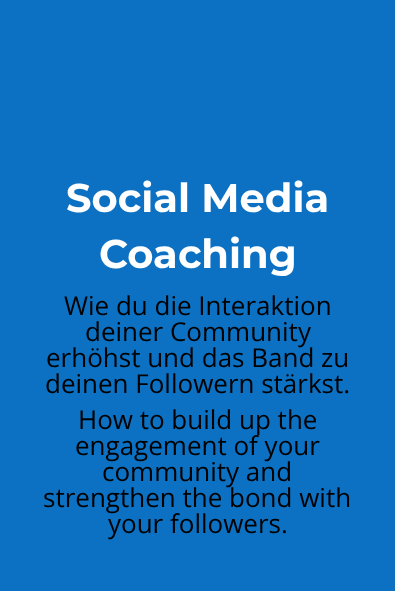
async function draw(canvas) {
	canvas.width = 395;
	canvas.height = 591;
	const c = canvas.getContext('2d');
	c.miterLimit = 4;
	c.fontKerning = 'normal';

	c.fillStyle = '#0c71c3';
	c.fillRect(0, 0, 395, 591);
	c.font = 'bold 40px Montserrat';
	c.fillStyle = '#fff';
	c.fillText('Social Media', 66, 212);
	c.fillText('Coaching', 99, 268);
	c.font = '26px Open Sans';
	c.fillStyle = '#000';
	for (const [text, x, y] of [
		['Wie du die Interaktion', 64, 315],
		['deiner Community', 85, 341],
		['erhöhst und das Band zu', 46, 367],
		['deinen Followern stärkst.', 45, 393],
		['How to build up the', 78, 429],
		['engagement of your', 75, 455],
		['community and', 102, 481],
		['strengthen the bond with', 43, 507],
		['your followers.', 108, 533],
	]) {
		c.fillText(text, x, y);
	}
}

draw(document.querySelector('canvas'));
